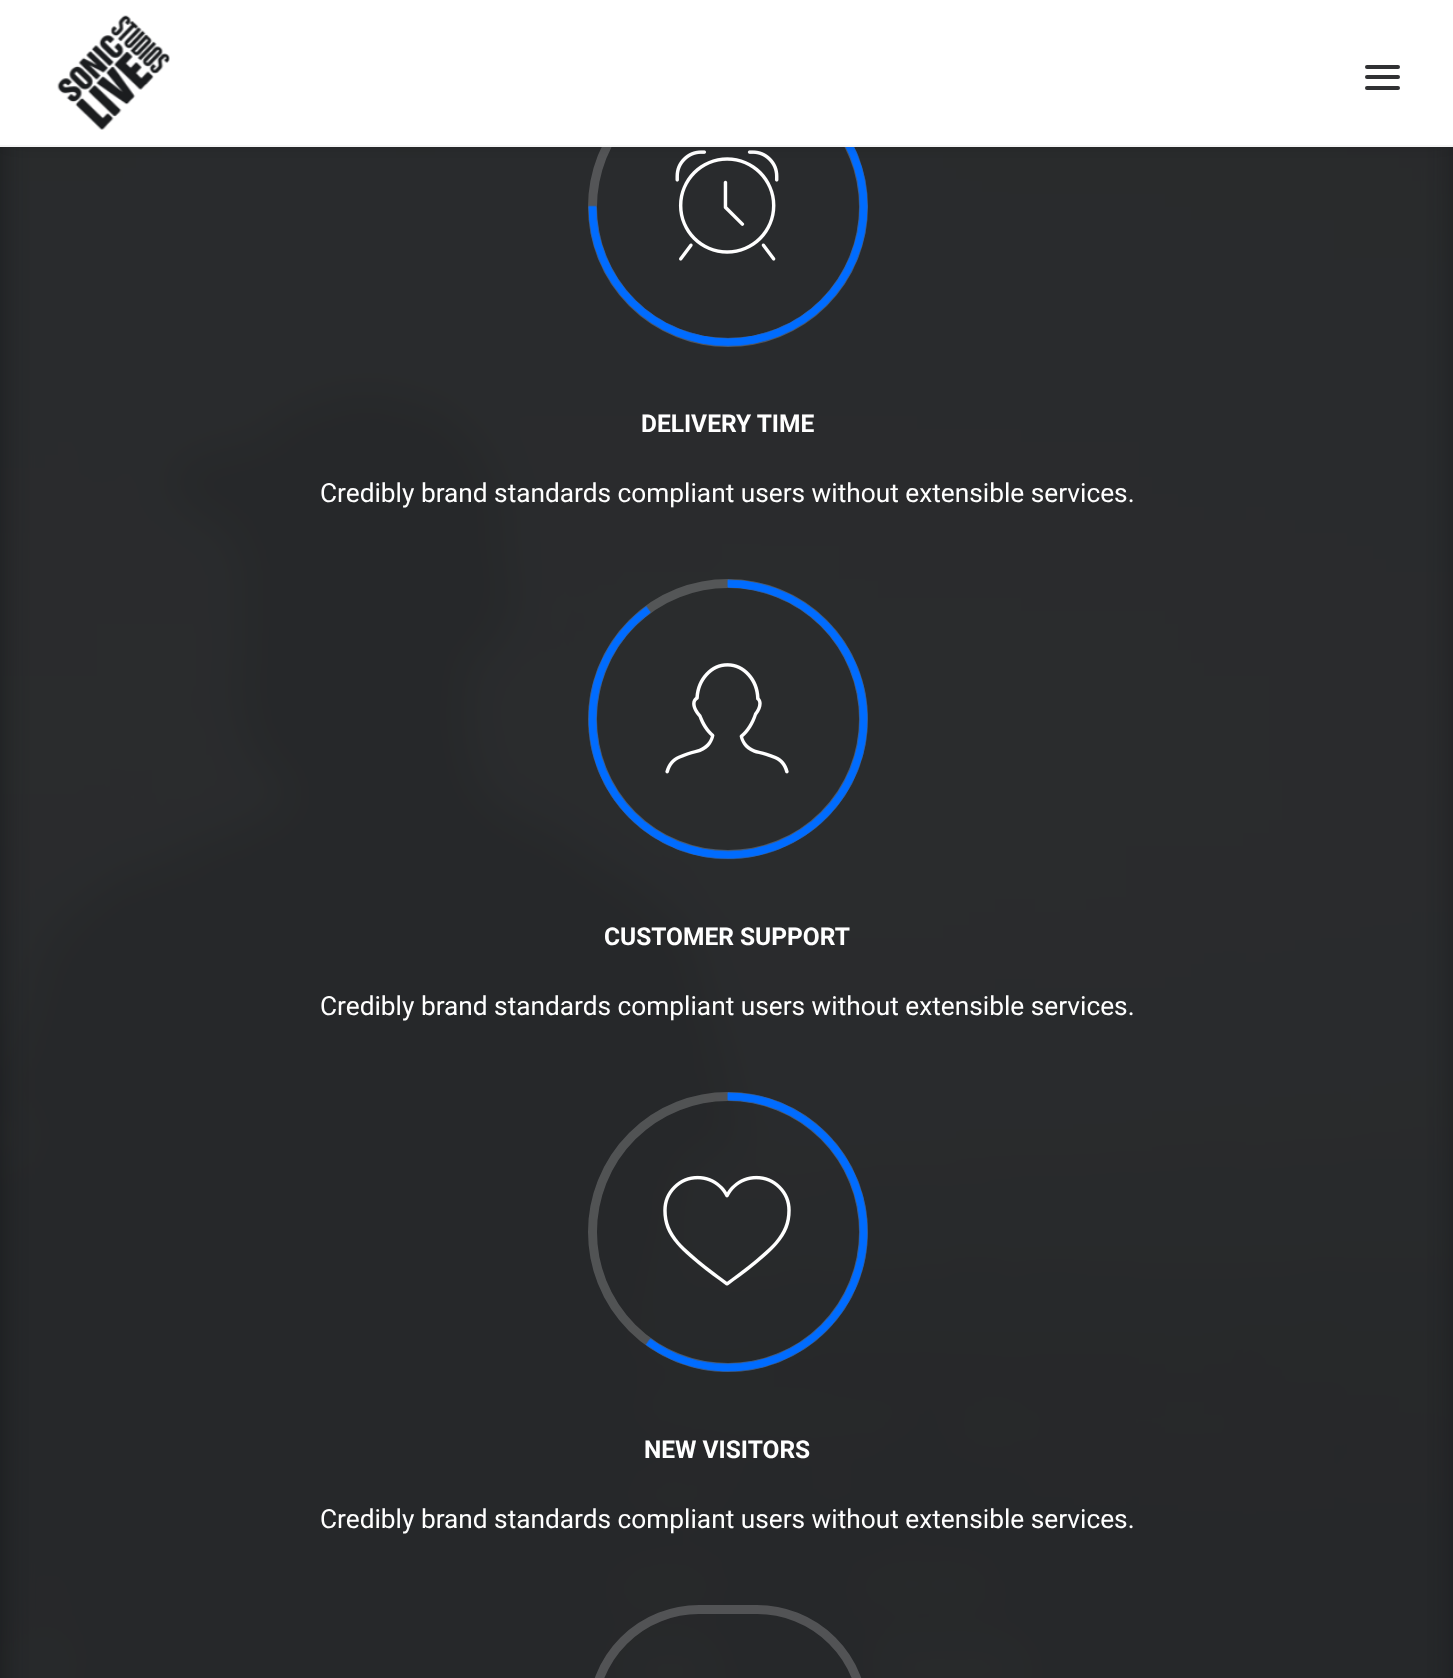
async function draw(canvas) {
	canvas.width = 1453;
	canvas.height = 1678;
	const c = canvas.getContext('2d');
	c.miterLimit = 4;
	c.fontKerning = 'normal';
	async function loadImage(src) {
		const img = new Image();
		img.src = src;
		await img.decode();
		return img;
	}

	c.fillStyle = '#141618';
	c.fillRect(0, 0, 1453, 1678);
	c.drawImage(await loadImage('img2.png'), 0, 147, 1453, 1531);
	c.beginPath();
	c.arc(728, 207, 135.5, 0, 2 * Math.PI);
	c.strokeStyle = '#545557';
	c.lineWidth = 9;
	c.stroke();
	c.drawImage(await loadImage('img4.png'), 675, 150, 104, 111);
	c.drawImage(await loadImage('img3.png'), 588, 147, 280, 200);
	c.fillStyle = '#00000099';
	c.filter = 'blur(9px)';
	c.beginPath();
	c.rect(11, 25, 1435, 112);
	c.fill();
	c.filter = 'none';
	c.fillStyle = '#fff';
	c.fillRect(0, 0, 1453, 145);
	c.fillStyle = '#f5f5f5';
	c.fillRect(0, 145, 1453, 2);
	c.drawImage(await loadImage('img1.png'), 57, 15, 113, 115);
	c.fillStyle = '#303133';
	c.beginPath();
	c.roundRect(1365, 75, 35, 4, 2);
	c.fill();
	c.beginPath();
	c.roundRect(1365, 65, 35, 4, 2);
	c.fill();
	c.beginPath();
	c.roundRect(1365, 86, 35, 4, 2);
	c.fill();
	c.font = 'bold 24.5px Roboto';
	c.fillStyle = '#fff';
	c.fillText('DELIVERY TIME', 641, 432);
	c.font = '26.25px Roboto';
	c.fillText('Credibly brand standards compliant users without extensible services.', 320, 502);
	c.beginPath();
	c.arc(728, 719, 135.5, 0, 2 * Math.PI);
	c.strokeStyle = '#545657';
	c.stroke();
	c.drawImage(await loadImage('img6.png'), 665, 663, 124, 111);
	c.drawImage(await loadImage('img5.png'), 588, 579, 280, 281);
	c.font = 'bold 24.5px Roboto';
	c.fillText('CUSTOMER SUPPORT', 604, 945);
	c.font = '26.25px Roboto';
	c.fillText('Credibly brand standards compliant users without extensible services.', 320, 1015);
	c.beginPath();
	c.arc(728, 1232, 135.5, 0, 2 * Math.PI);
	c.strokeStyle = '#ffffff33';
	c.stroke();
	c.drawImage(await loadImage('img8.png'), 663, 1175, 128, 111);
	c.drawImage(await loadImage('img7.png'), 645, 1092, 223, 280);
	c.font = 'bold 24.5px Roboto';
	c.fillText('NEW VISITORS', 644, 1458);
	c.font = '26.25px Roboto';
	c.fillText('Credibly brand standards compliant users without extensible services.', 320, 1528);
	c.beginPath();
	c.roundRect(592.5, 1609.5, 271, 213, 135.5);
	c.strokeStyle = '#525355';
	c.stroke();
}

draw(document.querySelector('canvas'));
